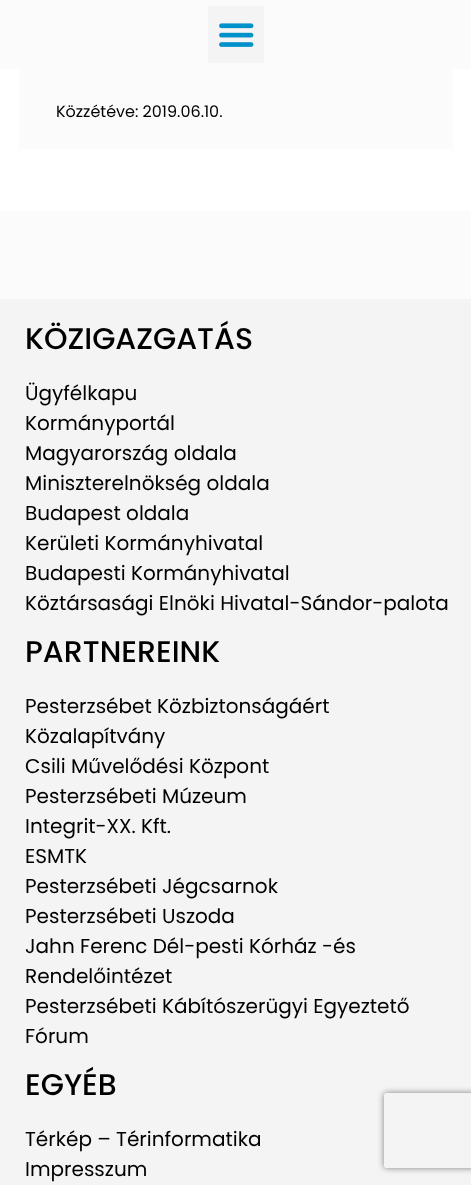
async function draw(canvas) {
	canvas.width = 471;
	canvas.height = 1185;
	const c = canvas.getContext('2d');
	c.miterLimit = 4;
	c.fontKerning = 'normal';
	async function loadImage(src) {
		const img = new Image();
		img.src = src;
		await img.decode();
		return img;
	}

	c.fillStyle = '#fff';
	c.fillRect(0, 0, 471, 1185);
	c.fillStyle = '#fbfbfb';
	c.fillRect(0, 0, 471, 69);
	c.fillStyle = '#f4f4f4';
	c.fillRect(208, 6, 56, 57);
	c.drawImage(await loadImage('img1.png'), 219, 23, 35, 24);
	c.fillStyle = '#fbfbfb';
	c.fillRect(19, 69, 434, 80);
	c.font = '16px Poppins';
	c.fillStyle = '#000';
	c.fillText('Közzétéve: 2019.06.10.', 56, 117);
	c.fillStyle = '#fbfbfb';
	c.fillRect(0, 211, 471, 88);
	c.fillStyle = '#f4f4f4';
	c.fillRect(0, 299, 471, 886);
	c.font = '500 30px Poppins';
	c.fillStyle = '#000';
	c.fillText('KÖZIGAZGATÁS', 25, 349);
	c.font = '20px Poppins';
	for (const [text, x, y] of [
		['Ügyfélkapu', 25, 400],
		['Kormányportál', 25, 430],
		['Magyarország oldala', 25, 460],
		['Miniszterelnökség oldala', 25, 490],
		['Budapest oldala', 25, 520],
		['Kerületi Kormányhivatal', 25, 550],
		['Budapesti Kormányhivatal', 25, 580],
		['Köztársasági Elnöki Hivatal-Sándor-palota', 25, 610],
	]) {
		c.fillText(text, x, y);
	}
	c.font = '500 30px Poppins';
	c.fillText('PARTNEREINK', 25, 662);
	c.font = '20px Poppins';
	for (const [text, x, y] of [
		['Pesterzsébet Közbiztonságáért', 25, 713],
		['Közalapítvány', 25, 743],
		['Csili Művelődési Központ', 25, 773],
		['Pesterzsébeti Múzeum', 25, 803],
		['Integrit-XX. Kft.', 25, 833],
		['ESMTK', 25, 863],
		['Pesterzsébeti Jégcsarnok', 25, 893],
		['Pesterzsébeti Uszoda', 25, 923],
		['Jahn Ferenc Dél-pesti Kórház -és', 25, 953],
		['Rendelőintézet', 25, 983],
		['Pesterzsébeti Kábítószerügyi Egyeztető', 25, 1013],
		['Fórum', 25, 1043],
	]) {
		c.fillText(text, x, y);
	}
	c.font = '500 30px Poppins';
	c.fillText('EGYÉB', 25, 1095);
	c.font = '20px Poppins';
	c.fillText('Térkép – Térinformatika', 25, 1146);
	c.fillText('Impresszum', 25, 1176);
	c.save();
	c.beginPath();
	c.moveTo(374, 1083);
	c.lineTo(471, 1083);
	c.lineTo(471, 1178);
	c.lineTo(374, 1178);
	c.closePath();
	c.moveTo(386.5, 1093);
	c.lineTo(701.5, 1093);
	c.bezierCurveTo(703, 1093, 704, 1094, 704, 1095.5);
	c.lineTo(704, 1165.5);
	c.bezierCurveTo(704, 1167, 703, 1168, 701.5, 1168);
	c.lineTo(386.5, 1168);
	c.bezierCurveTo(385, 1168, 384, 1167, 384, 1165.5);
	c.lineTo(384, 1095.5);
	c.bezierCurveTo(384, 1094, 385, 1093, 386.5, 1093);
	c.closePath();
	c.clip('evenodd');
	c.fillStyle = '#808080';
	c.filter = 'blur(3px)';
	c.beginPath();
	c.roundRect(384, 1093, 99, 75, 2.5);
	c.fill();
	c.filter = 'none';
	c.restore();
}

draw(document.querySelector('canvas'));
